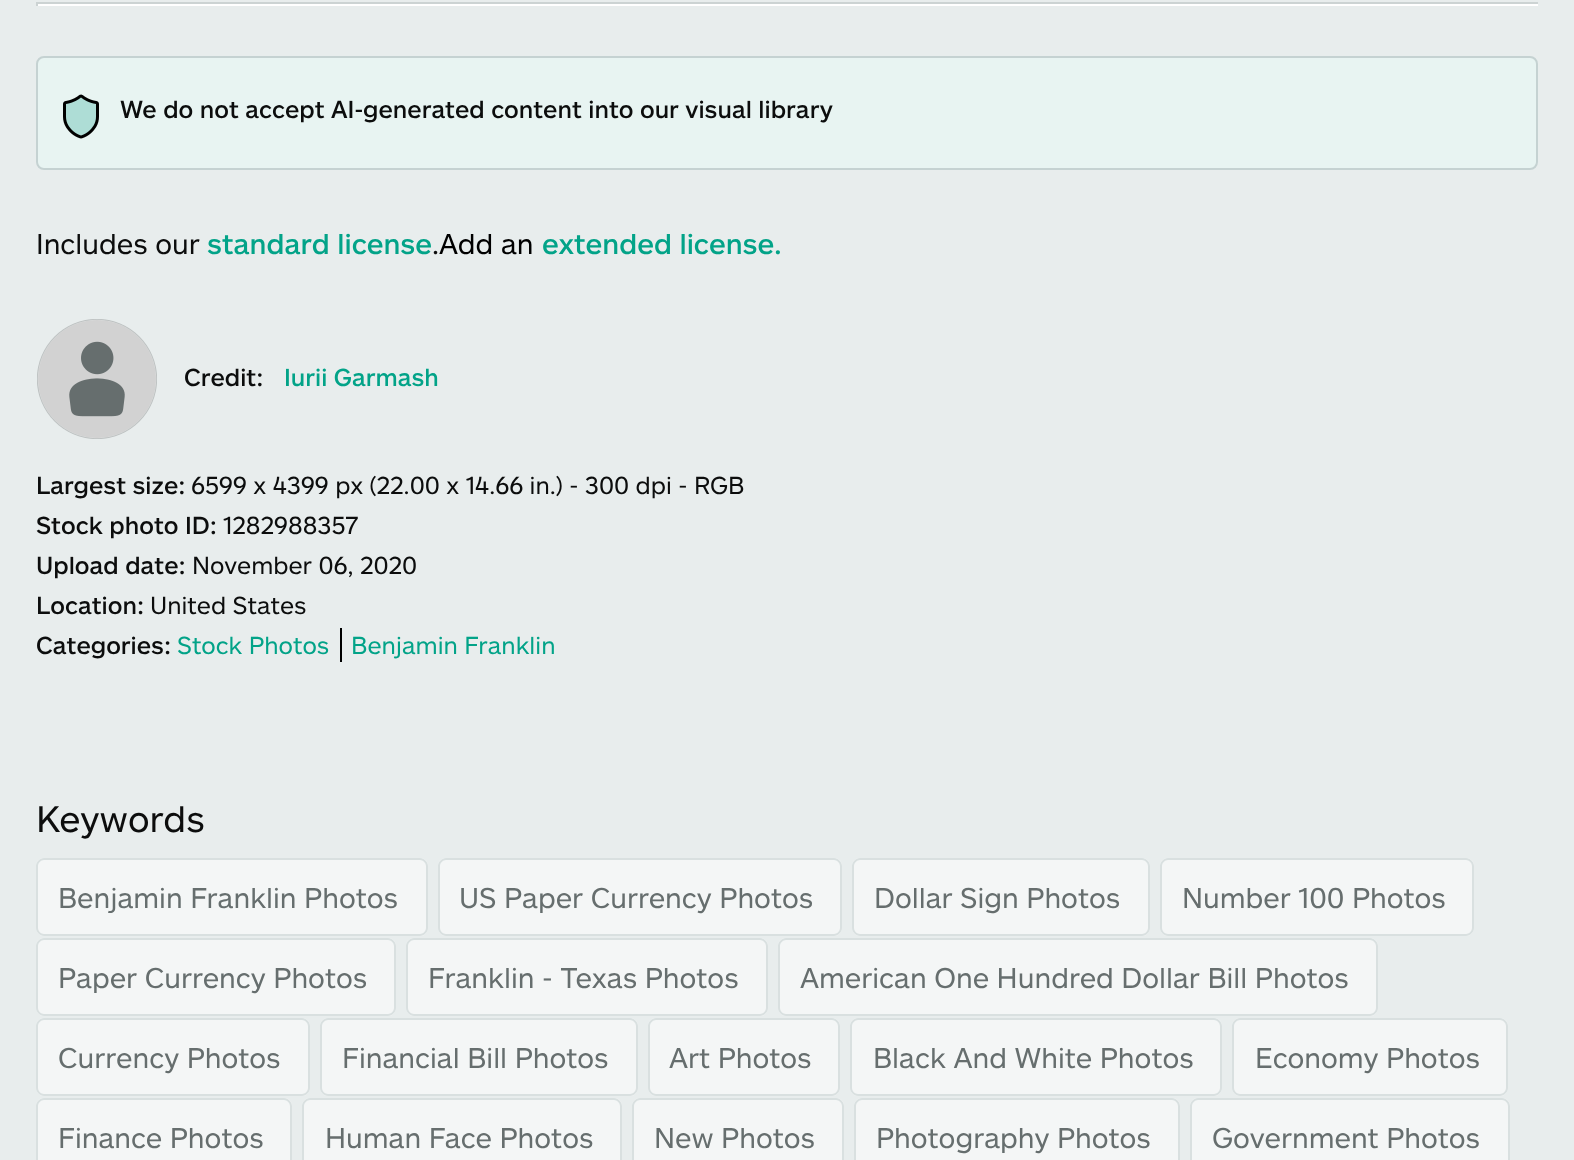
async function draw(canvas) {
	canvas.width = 1574;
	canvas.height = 1160;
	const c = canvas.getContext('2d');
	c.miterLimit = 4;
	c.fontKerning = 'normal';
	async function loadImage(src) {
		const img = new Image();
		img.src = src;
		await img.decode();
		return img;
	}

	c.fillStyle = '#e8eded';
	c.fillRect(0, 0, 1574, 1160);
	for (const [x, y, w, h, color] of [
		[36, 2, 1502, 2, '#ccd3d3'],
		[1536, 2, 2, 4, '#ccd3d3'],
		[36, 4, 1502, 2, '#fff'],
		[36, 2, 2, 4, '#ccd3d3'],
	]) {
		c.fillStyle = color;
		c.fillRect(x, y, w, h);
	}
	c.fillStyle = '#e8f4f2';
	c.beginPath();
	c.roundRect(37, 57, 1500, 112, 7);
	c.fill();
	c.strokeStyle = '#c5d2d2';
	c.lineWidth = 2;
	c.stroke();
	c.drawImage(await loadImage('img1.png'), 63, 94, 36, 45);
	c.font = '500 24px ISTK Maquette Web';
	c.fillStyle = '#0c0d0d';
	c.fillText('We do not accept AI-generated content into our visual library', 120, 118);
	c.font = '28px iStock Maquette';
	c.fillText('Includes our', 36, 254);
	c.font = '500 28px ISTK Maquette Web';
	c.fillStyle = '#02a388';
	c.fillText('standard license', 207, 254);
	c.font = '28px iStock Maquette';
	c.fillStyle = '#0c0d0d';
	c.fillText('.', 432, 254);
	c.fillStyle = '#000';
	c.fillText('Add an', 439, 254);
	c.font = '500 28px ISTK Maquette Web';
	c.fillStyle = '#02a388';
	c.fillText('extended license.', 542, 254);
	c.drawImage(await loadImage('img2.png'), 37, 319, 120, 120);
	c.font = '500 24px ISTK Maquette Web';
	c.fillStyle = '#0c0d0d';
	c.fillText('Credit:', 184, 386);
	c.fillStyle = '#02a388';
	c.fillText('Iurii Garmash', 284, 386);
	c.fillStyle = '#0c0d0d';
	c.fillText('Largest size:', 36, 494);
	c.font = '24px iStock Maquette';
	c.fillText('6599 x 4399 px (22.00 x 14.66 in.) - 300 dpi - RGB', 191, 494);
	c.font = '500 24px ISTK Maquette Web';
	c.fillText('Stock photo ID:', 36, 534);
	c.font = '24px iStock Maquette';
	c.fillText('1282988357', 223, 534);
	c.font = '500 24px ISTK Maquette Web';
	c.fillText('Upload date:', 36, 574);
	c.font = '24px iStock Maquette';
	c.fillText('November 06, 2020', 192, 574);
	c.font = '500 24px ISTK Maquette Web';
	c.fillText('Location:', 36, 614);
	c.font = '24px iStock Maquette';
	c.fillText('United States', 150, 614);
	c.font = '500 24px ISTK Maquette Web';
	c.fillText('Categories:', 36, 654);
	c.fillStyle = '#000';
	c.fillRect(340, 628, 2, 34);
	c.font = '24px iStock Maquette';
	c.fillStyle = '#02a388';
	c.fillText('Stock Photos', 177, 654);
	c.fillText('Benjamin Franklin', 351, 654);
	c.font = '36px iStock Maquette';
	c.fillStyle = '#0c0d0d';
	c.fillText('Keywords', 36, 832);
	c.fillStyle = '#f4f6f6';
	c.beginPath();
	c.roundRect(36, 858, 362, 78, [8, 0, 0, 8]);
	c.fill();
	c.fillStyle = '#d9e0e0';
	c.beginPath();
	c.moveTo(44, 858);
	c.lineTo(398, 858);
	c.lineTo(398, 936);
	c.lineTo(44, 936);
	c.bezierCurveTo(40, 936, 36, 932, 36, 928);
	c.lineTo(36, 866);
	c.bezierCurveTo(36, 862, 40, 858, 44, 858);
	c.closePath();
	c.moveTo(44, 860);
	c.lineTo(398, 860);
	c.lineTo(398, 934);
	c.lineTo(44, 934);
	c.bezierCurveTo(41, 934, 38, 931, 38, 928);
	c.lineTo(38, 866);
	c.bezierCurveTo(38, 863, 41, 860, 44, 860);
	c.closePath();
	c.fill('evenodd');
	c.font = '28px iStock Maquette';
	c.fillStyle = '#666e6e';
	c.fillText('Benjamin Franklin Photos', 58, 908);
	c.fillStyle = '#f4f6f6';
	c.beginPath();
	c.roundRect(398, 858, 30, 78, [0, 8, 8, 0]);
	c.fill();
	c.fillStyle = '#d9e0e0';
	c.beginPath();
	c.moveTo(398, 858);
	c.lineTo(420, 858);
	c.bezierCurveTo(424, 858, 428, 862, 428, 866);
	c.lineTo(428, 928);
	c.bezierCurveTo(428, 932, 424, 936, 420, 936);
	c.lineTo(398, 936);
	c.closePath();
	c.moveTo(398, 860);
	c.lineTo(420, 860);
	c.bezierCurveTo(423, 860, 426, 863, 426, 866);
	c.lineTo(426, 928);
	c.bezierCurveTo(426, 931, 423, 934, 420, 934);
	c.lineTo(398, 934);
	c.closePath();
	c.fill('evenodd');
	c.fillStyle = '#f4f6f6';
	c.beginPath();
	c.roundRect(438, 858, 376, 78, [8, 0, 0, 8]);
	c.fill();
	c.fillStyle = '#d9e0e0';
	c.beginPath();
	c.moveTo(446, 858);
	c.lineTo(814, 858);
	c.lineTo(814, 936);
	c.lineTo(446, 936);
	c.bezierCurveTo(442, 936, 438, 932, 438, 928);
	c.lineTo(438, 866);
	c.bezierCurveTo(438, 862, 442, 858, 446, 858);
	c.closePath();
	c.moveTo(446, 860);
	c.lineTo(814, 860);
	c.lineTo(814, 934);
	c.lineTo(446, 934);
	c.bezierCurveTo(443, 934, 440, 931, 440, 928);
	c.lineTo(440, 866);
	c.bezierCurveTo(440, 863, 443, 860, 446, 860);
	c.closePath();
	c.fill('evenodd');
	c.fillStyle = '#666e6e';
	c.fillText('US Paper Currency Photos', 459, 908);
	c.fillStyle = '#f4f6f6';
	c.beginPath();
	c.roundRect(814, 858, 28, 78, [0, 8, 8, 0]);
	c.fill();
	c.fillStyle = '#d9e0e0';
	c.beginPath();
	c.moveTo(814, 858);
	c.lineTo(834, 858);
	c.bezierCurveTo(838, 858, 842, 862, 842, 866);
	c.lineTo(842, 928);
	c.bezierCurveTo(842, 932, 838, 936, 834, 936);
	c.lineTo(814, 936);
	c.closePath();
	c.moveTo(814, 860);
	c.lineTo(834, 860);
	c.bezierCurveTo(837, 860, 840, 863, 840, 866);
	c.lineTo(840, 928);
	c.bezierCurveTo(840, 931, 837, 934, 834, 934);
	c.lineTo(814, 934);
	c.closePath();
	c.fill('evenodd');
	c.fillStyle = '#f4f6f6';
	c.beginPath();
	c.roundRect(852, 858, 268, 78, [8, 0, 0, 8]);
	c.fill();
	c.fillStyle = '#d9e0e0';
	c.beginPath();
	c.moveTo(860, 858);
	c.lineTo(1120, 858);
	c.lineTo(1120, 936);
	c.lineTo(860, 936);
	c.bezierCurveTo(856, 936, 852, 932, 852, 928);
	c.lineTo(852, 866);
	c.bezierCurveTo(852, 862, 856, 858, 860, 858);
	c.closePath();
	c.moveTo(860, 860);
	c.lineTo(1120, 860);
	c.lineTo(1120, 934);
	c.lineTo(860, 934);
	c.bezierCurveTo(857, 934, 854, 931, 854, 928);
	c.lineTo(854, 866);
	c.bezierCurveTo(854, 863, 857, 860, 860, 860);
	c.closePath();
	c.fill('evenodd');
	c.fillStyle = '#666e6e';
	c.fillText('Dollar Sign Photos', 874, 908);
	c.fillStyle = '#f4f6f6';
	c.beginPath();
	c.roundRect(1120, 858, 30, 78, [0, 8, 8, 0]);
	c.fill();
	c.fillStyle = '#d9e0e0';
	c.beginPath();
	c.moveTo(1120, 858);
	c.lineTo(1142, 858);
	c.bezierCurveTo(1146, 858, 1150, 862, 1150, 866);
	c.lineTo(1150, 928);
	c.bezierCurveTo(1150, 932, 1146, 936, 1142, 936);
	c.lineTo(1120, 936);
	c.closePath();
	c.moveTo(1120, 860);
	c.lineTo(1142, 860);
	c.bezierCurveTo(1145, 860, 1148, 863, 1148, 866);
	c.lineTo(1148, 928);
	c.bezierCurveTo(1148, 931, 1145, 934, 1142, 934);
	c.lineTo(1120, 934);
	c.closePath();
	c.fill('evenodd');
	c.fillStyle = '#f4f6f6';
	c.beginPath();
	c.roundRect(1160, 858, 286, 78, [8, 0, 0, 8]);
	c.fill();
	c.fillStyle = '#d9e0e0';
	c.beginPath();
	c.moveTo(1168, 858);
	c.lineTo(1446, 858);
	c.lineTo(1446, 936);
	c.lineTo(1168, 936);
	c.bezierCurveTo(1164, 936, 1160, 932, 1160, 928);
	c.lineTo(1160, 866);
	c.bezierCurveTo(1160, 862, 1164, 858, 1168, 858);
	c.closePath();
	c.moveTo(1168, 860);
	c.lineTo(1446, 860);
	c.lineTo(1446, 934);
	c.lineTo(1168, 934);
	c.bezierCurveTo(1165, 934, 1162, 931, 1162, 928);
	c.lineTo(1162, 866);
	c.bezierCurveTo(1162, 863, 1165, 860, 1168, 860);
	c.closePath();
	c.fill('evenodd');
	c.fillStyle = '#666e6e';
	c.fillText('Number 100 Photos', 1182, 908);
	c.fillStyle = '#f4f6f6';
	c.beginPath();
	c.roundRect(1446, 858, 28, 78, [0, 8, 8, 0]);
	c.fill();
	c.fillStyle = '#d9e0e0';
	c.beginPath();
	c.moveTo(1446, 858);
	c.lineTo(1466, 858);
	c.bezierCurveTo(1470, 858, 1474, 862, 1474, 866);
	c.lineTo(1474, 928);
	c.bezierCurveTo(1474, 932, 1470, 936, 1466, 936);
	c.lineTo(1446, 936);
	c.closePath();
	c.moveTo(1446, 860);
	c.lineTo(1466, 860);
	c.bezierCurveTo(1469, 860, 1472, 863, 1472, 866);
	c.lineTo(1472, 928);
	c.bezierCurveTo(1472, 931, 1469, 934, 1466, 934);
	c.lineTo(1446, 934);
	c.closePath();
	c.fill('evenodd');
	c.fillStyle = '#f4f6f6';
	c.beginPath();
	c.roundRect(36, 938, 332, 78, [8, 0, 0, 8]);
	c.fill();
	c.fillStyle = '#d9e0e0';
	c.beginPath();
	c.moveTo(44, 938);
	c.lineTo(368, 938);
	c.lineTo(368, 1016);
	c.lineTo(44, 1016);
	c.bezierCurveTo(40, 1016, 36, 1012, 36, 1008);
	c.lineTo(36, 946);
	c.bezierCurveTo(36, 942, 40, 938, 44, 938);
	c.closePath();
	c.moveTo(44, 940);
	c.lineTo(368, 940);
	c.lineTo(368, 1014);
	c.lineTo(44, 1014);
	c.bezierCurveTo(41, 1014, 38, 1011, 38, 1008);
	c.lineTo(38, 946);
	c.bezierCurveTo(38, 943, 41, 940, 44, 940);
	c.closePath();
	c.fill('evenodd');
	c.fillStyle = '#666e6e';
	c.fillText('Paper Currency Photos', 58, 988);
	c.fillStyle = '#f4f6f6';
	c.beginPath();
	c.roundRect(368, 938, 28, 78, [0, 8, 8, 0]);
	c.fill();
	c.fillStyle = '#d9e0e0';
	c.beginPath();
	c.moveTo(368, 938);
	c.lineTo(388, 938);
	c.bezierCurveTo(392, 938, 396, 942, 396, 946);
	c.lineTo(396, 1008);
	c.bezierCurveTo(396, 1012, 392, 1016, 388, 1016);
	c.lineTo(368, 1016);
	c.closePath();
	c.moveTo(368, 940);
	c.lineTo(388, 940);
	c.bezierCurveTo(391, 940, 394, 943, 394, 946);
	c.lineTo(394, 1008);
	c.bezierCurveTo(394, 1011, 391, 1014, 388, 1014);
	c.lineTo(368, 1014);
	c.closePath();
	c.fill('evenodd');
	c.fillStyle = '#f4f6f6';
	c.beginPath();
	c.roundRect(406, 938, 332, 78, [8, 0, 0, 8]);
	c.fill();
	c.fillStyle = '#d9e0e0';
	c.beginPath();
	c.moveTo(414, 938);
	c.lineTo(738, 938);
	c.lineTo(738, 1016);
	c.lineTo(414, 1016);
	c.bezierCurveTo(410, 1016, 406, 1012, 406, 1008);
	c.lineTo(406, 946);
	c.bezierCurveTo(406, 942, 410, 938, 414, 938);
	c.closePath();
	c.moveTo(414, 940);
	c.lineTo(738, 940);
	c.lineTo(738, 1014);
	c.lineTo(414, 1014);
	c.bezierCurveTo(411, 1014, 408, 1011, 408, 1008);
	c.lineTo(408, 946);
	c.bezierCurveTo(408, 943, 411, 940, 414, 940);
	c.closePath();
	c.fill('evenodd');
	c.fillStyle = '#666e6e';
	c.fillText('Franklin - Texas Photos', 428, 988);
	c.fillStyle = '#f4f6f6';
	c.beginPath();
	c.roundRect(738, 938, 30, 78, [0, 8, 8, 0]);
	c.fill();
	c.fillStyle = '#d9e0e0';
	c.beginPath();
	c.moveTo(738, 938);
	c.lineTo(760, 938);
	c.bezierCurveTo(764, 938, 768, 942, 768, 946);
	c.lineTo(768, 1008);
	c.bezierCurveTo(768, 1012, 764, 1016, 760, 1016);
	c.lineTo(738, 1016);
	c.closePath();
	c.moveTo(738, 940);
	c.lineTo(760, 940);
	c.bezierCurveTo(763, 940, 766, 943, 766, 946);
	c.lineTo(766, 1008);
	c.bezierCurveTo(766, 1011, 763, 1014, 760, 1014);
	c.lineTo(738, 1014);
	c.closePath();
	c.fill('evenodd');
	c.fillStyle = '#f4f6f6';
	c.beginPath();
	c.roundRect(778, 938, 570, 78, [8, 0, 0, 8]);
	c.fill();
	c.fillStyle = '#d9e0e0';
	c.beginPath();
	c.moveTo(786, 938);
	c.lineTo(1348, 938);
	c.lineTo(1348, 1016);
	c.lineTo(786, 1016);
	c.bezierCurveTo(782, 1016, 778, 1012, 778, 1008);
	c.lineTo(778, 946);
	c.bezierCurveTo(778, 942, 782, 938, 786, 938);
	c.closePath();
	c.moveTo(786, 940);
	c.lineTo(1348, 940);
	c.lineTo(1348, 1014);
	c.lineTo(786, 1014);
	c.bezierCurveTo(783, 1014, 780, 1011, 780, 1008);
	c.lineTo(780, 946);
	c.bezierCurveTo(780, 943, 783, 940, 786, 940);
	c.closePath();
	c.fill('evenodd');
	c.fillStyle = '#666e6e';
	c.fillText('American One Hundred Dollar Bill Photos', 800, 988);
	c.fillStyle = '#f4f6f6';
	c.beginPath();
	c.roundRect(1348, 938, 30, 78, [0, 8, 8, 0]);
	c.fill();
	c.fillStyle = '#d9e0e0';
	c.beginPath();
	c.moveTo(1348, 938);
	c.lineTo(1370, 938);
	c.bezierCurveTo(1374, 938, 1378, 942, 1378, 946);
	c.lineTo(1378, 1008);
	c.bezierCurveTo(1378, 1012, 1374, 1016, 1370, 1016);
	c.lineTo(1348, 1016);
	c.closePath();
	c.moveTo(1348, 940);
	c.lineTo(1370, 940);
	c.bezierCurveTo(1373, 940, 1376, 943, 1376, 946);
	c.lineTo(1376, 1008);
	c.bezierCurveTo(1376, 1011, 1373, 1014, 1370, 1014);
	c.lineTo(1348, 1014);
	c.closePath();
	c.fill('evenodd');
	c.fillStyle = '#f4f6f6';
	c.beginPath();
	c.roundRect(36, 1018, 244, 78, [8, 0, 0, 8]);
	c.fill();
	c.fillStyle = '#d9e0e0';
	c.beginPath();
	c.moveTo(44, 1018);
	c.lineTo(280, 1018);
	c.lineTo(280, 1096);
	c.lineTo(44, 1096);
	c.bezierCurveTo(40, 1096, 36, 1092, 36, 1088);
	c.lineTo(36, 1026);
	c.bezierCurveTo(36, 1022, 40, 1018, 44, 1018);
	c.closePath();
	c.moveTo(44, 1020);
	c.lineTo(280, 1020);
	c.lineTo(280, 1094);
	c.lineTo(44, 1094);
	c.bezierCurveTo(41, 1094, 38, 1091, 38, 1088);
	c.lineTo(38, 1026);
	c.bezierCurveTo(38, 1023, 41, 1020, 44, 1020);
	c.closePath();
	c.fill('evenodd');
	c.fillStyle = '#666e6e';
	c.fillText('Currency Photos', 58, 1068);
	c.fillStyle = '#f4f6f6';
	c.beginPath();
	c.roundRect(280, 1018, 30, 78, [0, 8, 8, 0]);
	c.fill();
	c.fillStyle = '#d9e0e0';
	c.beginPath();
	c.moveTo(280, 1018);
	c.lineTo(302, 1018);
	c.bezierCurveTo(306, 1018, 310, 1022, 310, 1026);
	c.lineTo(310, 1088);
	c.bezierCurveTo(310, 1092, 306, 1096, 302, 1096);
	c.lineTo(280, 1096);
	c.closePath();
	c.moveTo(280, 1020);
	c.lineTo(302, 1020);
	c.bezierCurveTo(305, 1020, 308, 1023, 308, 1026);
	c.lineTo(308, 1088);
	c.bezierCurveTo(308, 1091, 305, 1094, 302, 1094);
	c.lineTo(280, 1094);
	c.closePath();
	c.fill('evenodd');
	c.fillStyle = '#f4f6f6';
	c.beginPath();
	c.roundRect(320, 1018, 288, 78, [8, 0, 0, 8]);
	c.fill();
	c.fillStyle = '#d9e0e0';
	c.beginPath();
	c.moveTo(328, 1018);
	c.lineTo(608, 1018);
	c.lineTo(608, 1096);
	c.lineTo(328, 1096);
	c.bezierCurveTo(324, 1096, 320, 1092, 320, 1088);
	c.lineTo(320, 1026);
	c.bezierCurveTo(320, 1022, 324, 1018, 328, 1018);
	c.closePath();
	c.moveTo(328, 1020);
	c.lineTo(608, 1020);
	c.lineTo(608, 1094);
	c.lineTo(328, 1094);
	c.bezierCurveTo(325, 1094, 322, 1091, 322, 1088);
	c.lineTo(322, 1026);
	c.bezierCurveTo(322, 1023, 325, 1020, 328, 1020);
	c.closePath();
	c.fill('evenodd');
	c.fillStyle = '#666e6e';
	c.fillText('Financial Bill Photos', 342, 1068);
	c.fillStyle = '#f4f6f6';
	c.beginPath();
	c.roundRect(608, 1018, 30, 78, [0, 8, 8, 0]);
	c.fill();
	c.fillStyle = '#d9e0e0';
	c.beginPath();
	c.moveTo(608, 1018);
	c.lineTo(630, 1018);
	c.bezierCurveTo(634, 1018, 638, 1022, 638, 1026);
	c.lineTo(638, 1088);
	c.bezierCurveTo(638, 1092, 634, 1096, 630, 1096);
	c.lineTo(608, 1096);
	c.closePath();
	c.moveTo(608, 1020);
	c.lineTo(630, 1020);
	c.bezierCurveTo(633, 1020, 636, 1023, 636, 1026);
	c.lineTo(636, 1088);
	c.bezierCurveTo(636, 1091, 633, 1094, 630, 1094);
	c.lineTo(608, 1094);
	c.closePath();
	c.fill('evenodd');
	c.fillStyle = '#f4f6f6';
	c.beginPath();
	c.roundRect(648, 1018, 164, 78, [8, 0, 0, 8]);
	c.fill();
	c.fillStyle = '#d9e0e0';
	c.beginPath();
	c.moveTo(656, 1018);
	c.lineTo(812, 1018);
	c.lineTo(812, 1096);
	c.lineTo(656, 1096);
	c.bezierCurveTo(652, 1096, 648, 1092, 648, 1088);
	c.lineTo(648, 1026);
	c.bezierCurveTo(648, 1022, 652, 1018, 656, 1018);
	c.closePath();
	c.moveTo(656, 1020);
	c.lineTo(812, 1020);
	c.lineTo(812, 1094);
	c.lineTo(656, 1094);
	c.bezierCurveTo(653, 1094, 650, 1091, 650, 1088);
	c.lineTo(650, 1026);
	c.bezierCurveTo(650, 1023, 653, 1020, 656, 1020);
	c.closePath();
	c.fill('evenodd');
	c.fillStyle = '#666e6e';
	c.fillText('Art Photos', 669, 1068);
	c.fillStyle = '#f4f6f6';
	c.beginPath();
	c.roundRect(812, 1018, 28, 78, [0, 8, 8, 0]);
	c.fill();
	c.fillStyle = '#d9e0e0';
	c.beginPath();
	c.moveTo(812, 1018);
	c.lineTo(832, 1018);
	c.bezierCurveTo(836, 1018, 840, 1022, 840, 1026);
	c.lineTo(840, 1088);
	c.bezierCurveTo(840, 1092, 836, 1096, 832, 1096);
	c.lineTo(812, 1096);
	c.closePath();
	c.moveTo(812, 1020);
	c.lineTo(832, 1020);
	c.bezierCurveTo(835, 1020, 838, 1023, 838, 1026);
	c.lineTo(838, 1088);
	c.bezierCurveTo(838, 1091, 835, 1094, 832, 1094);
	c.lineTo(812, 1094);
	c.closePath();
	c.fill('evenodd');
	c.fillStyle = '#f4f6f6';
	c.beginPath();
	c.roundRect(850, 1018, 344, 78, [8, 0, 0, 8]);
	c.fill();
	c.fillStyle = '#d9e0e0';
	c.beginPath();
	c.moveTo(858, 1018);
	c.lineTo(1194, 1018);
	c.lineTo(1194, 1096);
	c.lineTo(858, 1096);
	c.bezierCurveTo(854, 1096, 850, 1092, 850, 1088);
	c.lineTo(850, 1026);
	c.bezierCurveTo(850, 1022, 854, 1018, 858, 1018);
	c.closePath();
	c.moveTo(858, 1020);
	c.lineTo(1194, 1020);
	c.lineTo(1194, 1094);
	c.lineTo(858, 1094);
	c.bezierCurveTo(855, 1094, 852, 1091, 852, 1088);
	c.lineTo(852, 1026);
	c.bezierCurveTo(852, 1023, 855, 1020, 858, 1020);
	c.closePath();
	c.fill('evenodd');
	c.fillStyle = '#666e6e';
	c.fillText('Black And White Photos', 873, 1068);
	c.fillStyle = '#f4f6f6';
	c.beginPath();
	c.roundRect(1194, 1018, 28, 78, [0, 8, 8, 0]);
	c.fill();
	c.fillStyle = '#d9e0e0';
	c.beginPath();
	c.moveTo(1194, 1018);
	c.lineTo(1214, 1018);
	c.bezierCurveTo(1218, 1018, 1222, 1022, 1222, 1026);
	c.lineTo(1222, 1088);
	c.bezierCurveTo(1222, 1092, 1218, 1096, 1214, 1096);
	c.lineTo(1194, 1096);
	c.closePath();
	c.moveTo(1194, 1020);
	c.lineTo(1214, 1020);
	c.bezierCurveTo(1217, 1020, 1220, 1023, 1220, 1026);
	c.lineTo(1220, 1088);
	c.bezierCurveTo(1220, 1091, 1217, 1094, 1214, 1094);
	c.lineTo(1194, 1094);
	c.closePath();
	c.fill('evenodd');
	c.fillStyle = '#f4f6f6';
	c.beginPath();
	c.roundRect(1232, 1018, 248, 78, [8, 0, 0, 8]);
	c.fill();
	c.fillStyle = '#d9e0e0';
	c.beginPath();
	c.moveTo(1240, 1018);
	c.lineTo(1480, 1018);
	c.lineTo(1480, 1096);
	c.lineTo(1240, 1096);
	c.bezierCurveTo(1236, 1096, 1232, 1092, 1232, 1088);
	c.lineTo(1232, 1026);
	c.bezierCurveTo(1232, 1022, 1236, 1018, 1240, 1018);
	c.closePath();
	c.moveTo(1240, 1020);
	c.lineTo(1480, 1020);
	c.lineTo(1480, 1094);
	c.lineTo(1240, 1094);
	c.bezierCurveTo(1237, 1094, 1234, 1091, 1234, 1088);
	c.lineTo(1234, 1026);
	c.bezierCurveTo(1234, 1023, 1237, 1020, 1240, 1020);
	c.closePath();
	c.fill('evenodd');
	c.fillStyle = '#666e6e';
	c.fillText('Economy Photos', 1255, 1068);
	c.fillStyle = '#f4f6f6';
	c.beginPath();
	c.roundRect(1480, 1018, 28, 78, [0, 8, 8, 0]);
	c.fill();
	c.fillStyle = '#d9e0e0';
	c.beginPath();
	c.moveTo(1480, 1018);
	c.lineTo(1500, 1018);
	c.bezierCurveTo(1504, 1018, 1508, 1022, 1508, 1026);
	c.lineTo(1508, 1088);
	c.bezierCurveTo(1508, 1092, 1504, 1096, 1500, 1096);
	c.lineTo(1480, 1096);
	c.closePath();
	c.moveTo(1480, 1020);
	c.lineTo(1500, 1020);
	c.bezierCurveTo(1503, 1020, 1506, 1023, 1506, 1026);
	c.lineTo(1506, 1088);
	c.bezierCurveTo(1506, 1091, 1503, 1094, 1500, 1094);
	c.lineTo(1480, 1094);
	c.closePath();
	c.fill('evenodd');
	c.fillStyle = '#f4f6f6';
	c.beginPath();
	c.moveTo(44, 1098);
	c.lineTo(264, 1098);
	c.lineTo(264, 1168);
	c.lineTo(44, 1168);
	c.bezierCurveTo(39.5, 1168, 36, 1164.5, 36, 1160);
	c.lineTo(36, 1106);
	c.bezierCurveTo(36, 1101.5, 39.5, 1098, 44, 1098);
	c.closePath();
	c.fill();
	c.fillStyle = '#d9e0e0';
	c.beginPath();
	c.moveTo(44, 1098);
	c.lineTo(264, 1098);
	c.lineTo(264, 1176);
	c.lineTo(44, 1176);
	c.bezierCurveTo(40, 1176, 36, 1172, 36, 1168);
	c.lineTo(36, 1106);
	c.bezierCurveTo(36, 1102, 40, 1098, 44, 1098);
	c.closePath();
	c.moveTo(44, 1100);
	c.lineTo(264, 1100);
	c.lineTo(264, 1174);
	c.lineTo(44, 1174);
	c.bezierCurveTo(41, 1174, 38, 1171, 38, 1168);
	c.lineTo(38, 1106);
	c.bezierCurveTo(38, 1103, 41, 1100, 44, 1100);
	c.closePath();
	c.fill('evenodd');
	c.fillStyle = '#666e6e';
	c.fillText('Finance Photos', 58, 1148);
	c.fillStyle = '#f4f6f6';
	c.beginPath();
	c.moveTo(264, 1098);
	c.lineTo(284, 1098);
	c.bezierCurveTo(288.5, 1098, 292, 1101.5, 292, 1106);
	c.lineTo(292, 1160);
	c.bezierCurveTo(292, 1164.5, 288.5, 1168, 284, 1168);
	c.lineTo(264, 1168);
	c.closePath();
	c.fill();
	c.fillStyle = '#d9e0e0';
	c.beginPath();
	c.moveTo(264, 1098);
	c.lineTo(284, 1098);
	c.bezierCurveTo(288, 1098, 292, 1102, 292, 1106);
	c.lineTo(292, 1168);
	c.bezierCurveTo(292, 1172, 288, 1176, 284, 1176);
	c.lineTo(264, 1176);
	c.closePath();
	c.moveTo(264, 1100);
	c.lineTo(284, 1100);
	c.bezierCurveTo(287, 1100, 290, 1103, 290, 1106);
	c.lineTo(290, 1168);
	c.bezierCurveTo(290, 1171, 287, 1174, 284, 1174);
	c.lineTo(264, 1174);
	c.closePath();
	c.fill('evenodd');
	c.fillStyle = '#f4f6f6';
	c.beginPath();
	c.moveTo(310, 1098);
	c.lineTo(594, 1098);
	c.lineTo(594, 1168);
	c.lineTo(310, 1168);
	c.bezierCurveTo(305.5, 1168, 302, 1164.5, 302, 1160);
	c.lineTo(302, 1106);
	c.bezierCurveTo(302, 1101.5, 305.5, 1098, 310, 1098);
	c.closePath();
	c.fill();
	c.fillStyle = '#d9e0e0';
	c.beginPath();
	c.moveTo(310, 1098);
	c.lineTo(594, 1098);
	c.lineTo(594, 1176);
	c.lineTo(310, 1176);
	c.bezierCurveTo(306, 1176, 302, 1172, 302, 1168);
	c.lineTo(302, 1106);
	c.bezierCurveTo(302, 1102, 306, 1098, 310, 1098);
	c.closePath();
	c.moveTo(310, 1100);
	c.lineTo(594, 1100);
	c.lineTo(594, 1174);
	c.lineTo(310, 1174);
	c.bezierCurveTo(307, 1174, 304, 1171, 304, 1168);
	c.lineTo(304, 1106);
	c.bezierCurveTo(304, 1103, 307, 1100, 310, 1100);
	c.closePath();
	c.fill('evenodd');
	c.fillStyle = '#666e6e';
	c.fillText('Human Face Photos', 325, 1148);
	c.fillStyle = '#f4f6f6';
	c.beginPath();
	c.moveTo(594, 1098);
	c.lineTo(614, 1098);
	c.bezierCurveTo(618.5, 1098, 622, 1101.5, 622, 1106);
	c.lineTo(622, 1160);
	c.bezierCurveTo(622, 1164.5, 618.5, 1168, 614, 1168);
	c.lineTo(594, 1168);
	c.closePath();
	c.fill();
	c.fillStyle = '#d9e0e0';
	c.beginPath();
	c.moveTo(594, 1098);
	c.lineTo(614, 1098);
	c.bezierCurveTo(618, 1098, 622, 1102, 622, 1106);
	c.lineTo(622, 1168);
	c.bezierCurveTo(622, 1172, 618, 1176, 614, 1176);
	c.lineTo(594, 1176);
	c.closePath();
	c.moveTo(594, 1100);
	c.lineTo(614, 1100);
	c.bezierCurveTo(617, 1100, 620, 1103, 620, 1106);
	c.lineTo(620, 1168);
	c.bezierCurveTo(620, 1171, 617, 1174, 614, 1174);
	c.lineTo(594, 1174);
	c.closePath();
	c.fill('evenodd');
	c.fillStyle = '#f4f6f6';
	c.beginPath();
	c.moveTo(640, 1098);
	c.lineTo(816, 1098);
	c.lineTo(816, 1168);
	c.lineTo(640, 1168);
	c.bezierCurveTo(635.5, 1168, 632, 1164.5, 632, 1160);
	c.lineTo(632, 1106);
	c.bezierCurveTo(632, 1101.5, 635.5, 1098, 640, 1098);
	c.closePath();
	c.fill();
	c.fillStyle = '#d9e0e0';
	c.beginPath();
	c.moveTo(640, 1098);
	c.lineTo(816, 1098);
	c.lineTo(816, 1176);
	c.lineTo(640, 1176);
	c.bezierCurveTo(636, 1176, 632, 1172, 632, 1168);
	c.lineTo(632, 1106);
	c.bezierCurveTo(632, 1102, 636, 1098, 640, 1098);
	c.closePath();
	c.moveTo(640, 1100);
	c.lineTo(816, 1100);
	c.lineTo(816, 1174);
	c.lineTo(640, 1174);
	c.bezierCurveTo(637, 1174, 634, 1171, 634, 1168);
	c.lineTo(634, 1106);
	c.bezierCurveTo(634, 1103, 637, 1100, 640, 1100);
	c.closePath();
	c.fill('evenodd');
	c.fillStyle = '#666e6e';
	c.fillText('New Photos', 654, 1148);
	c.fillStyle = '#f4f6f6';
	c.beginPath();
	c.moveTo(816, 1098);
	c.lineTo(836, 1098);
	c.bezierCurveTo(840.5, 1098, 844, 1101.5, 844, 1106);
	c.lineTo(844, 1160);
	c.bezierCurveTo(844, 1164.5, 840.5, 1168, 836, 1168);
	c.lineTo(816, 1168);
	c.closePath();
	c.fill();
	c.fillStyle = '#d9e0e0';
	c.beginPath();
	c.moveTo(816, 1098);
	c.lineTo(836, 1098);
	c.bezierCurveTo(840, 1098, 844, 1102, 844, 1106);
	c.lineTo(844, 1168);
	c.bezierCurveTo(844, 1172, 840, 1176, 836, 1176);
	c.lineTo(816, 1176);
	c.closePath();
	c.moveTo(816, 1100);
	c.lineTo(836, 1100);
	c.bezierCurveTo(839, 1100, 842, 1103, 842, 1106);
	c.lineTo(842, 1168);
	c.bezierCurveTo(842, 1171, 839, 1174, 836, 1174);
	c.lineTo(816, 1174);
	c.closePath();
	c.fill('evenodd');
	c.fillStyle = '#f4f6f6';
	c.beginPath();
	c.moveTo(862, 1098);
	c.lineTo(1152, 1098);
	c.lineTo(1152, 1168);
	c.lineTo(862, 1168);
	c.bezierCurveTo(857.5, 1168, 854, 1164.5, 854, 1160);
	c.lineTo(854, 1106);
	c.bezierCurveTo(854, 1101.5, 857.5, 1098, 862, 1098);
	c.closePath();
	c.fill();
	c.fillStyle = '#d9e0e0';
	c.beginPath();
	c.moveTo(862, 1098);
	c.lineTo(1152, 1098);
	c.lineTo(1152, 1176);
	c.lineTo(862, 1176);
	c.bezierCurveTo(858, 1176, 854, 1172, 854, 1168);
	c.lineTo(854, 1106);
	c.bezierCurveTo(854, 1102, 858, 1098, 862, 1098);
	c.closePath();
	c.moveTo(862, 1100);
	c.lineTo(1152, 1100);
	c.lineTo(1152, 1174);
	c.lineTo(862, 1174);
	c.bezierCurveTo(859, 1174, 856, 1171, 856, 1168);
	c.lineTo(856, 1106);
	c.bezierCurveTo(856, 1103, 859, 1100, 862, 1100);
	c.closePath();
	c.fill('evenodd');
	c.fillStyle = '#666e6e';
	c.fillText('Photography Photos', 876, 1148);
	c.fillStyle = '#f4f6f6';
	c.beginPath();
	c.moveTo(1152, 1098);
	c.lineTo(1172, 1098);
	c.bezierCurveTo(1176.5, 1098, 1180, 1101.5, 1180, 1106);
	c.lineTo(1180, 1160);
	c.bezierCurveTo(1180, 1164.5, 1176.5, 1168, 1172, 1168);
	c.lineTo(1152, 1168);
	c.closePath();
	c.fill();
	c.fillStyle = '#d9e0e0';
	c.beginPath();
	c.moveTo(1152, 1098);
	c.lineTo(1172, 1098);
	c.bezierCurveTo(1176, 1098, 1180, 1102, 1180, 1106);
	c.lineTo(1180, 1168);
	c.bezierCurveTo(1180, 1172, 1176, 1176, 1172, 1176);
	c.lineTo(1152, 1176);
	c.closePath();
	c.moveTo(1152, 1100);
	c.lineTo(1172, 1100);
	c.bezierCurveTo(1175, 1100, 1178, 1103, 1178, 1106);
	c.lineTo(1178, 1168);
	c.bezierCurveTo(1178, 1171, 1175, 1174, 1172, 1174);
	c.lineTo(1152, 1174);
	c.closePath();
	c.fill('evenodd');
	c.fillStyle = '#f4f6f6';
	c.beginPath();
	c.moveTo(1198, 1098);
	c.lineTo(1480, 1098);
	c.lineTo(1480, 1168);
	c.lineTo(1198, 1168);
	c.bezierCurveTo(1193.5, 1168, 1190, 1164.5, 1190, 1160);
	c.lineTo(1190, 1106);
	c.bezierCurveTo(1190, 1101.5, 1193.5, 1098, 1198, 1098);
	c.closePath();
	c.fill();
	c.fillStyle = '#d9e0e0';
	c.beginPath();
	c.moveTo(1198, 1098);
	c.lineTo(1480, 1098);
	c.lineTo(1480, 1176);
	c.lineTo(1198, 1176);
	c.bezierCurveTo(1194, 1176, 1190, 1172, 1190, 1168);
	c.lineTo(1190, 1106);
	c.bezierCurveTo(1190, 1102, 1194, 1098, 1198, 1098);
	c.closePath();
	c.moveTo(1198, 1100);
	c.lineTo(1480, 1100);
	c.lineTo(1480, 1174);
	c.lineTo(1198, 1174);
	c.bezierCurveTo(1195, 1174, 1192, 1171, 1192, 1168);
	c.lineTo(1192, 1106);
	c.bezierCurveTo(1192, 1103, 1195, 1100, 1198, 1100);
	c.closePath();
	c.fill('evenodd');
	c.fillStyle = '#666e6e';
	c.fillText('Government Photos', 1212, 1148);
	c.fillStyle = '#f4f6f6';
	c.beginPath();
	c.moveTo(1480, 1098);
	c.lineTo(1502, 1098);
	c.bezierCurveTo(1506.5, 1098, 1510, 1101.5, 1510, 1106);
	c.lineTo(1510, 1160);
	c.bezierCurveTo(1510, 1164.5, 1506.5, 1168, 1502, 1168);
	c.lineTo(1480, 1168);
	c.closePath();
	c.fill();
	c.fillStyle = '#d9e0e0';
	c.beginPath();
	c.moveTo(1480, 1098);
	c.lineTo(1502, 1098);
	c.bezierCurveTo(1506, 1098, 1510, 1102, 1510, 1106);
	c.lineTo(1510, 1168);
	c.bezierCurveTo(1510, 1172, 1506, 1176, 1502, 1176);
	c.lineTo(1480, 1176);
	c.closePath();
	c.moveTo(1480, 1100);
	c.lineTo(1502, 1100);
	c.bezierCurveTo(1505, 1100, 1508, 1103, 1508, 1106);
	c.lineTo(1508, 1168);
	c.bezierCurveTo(1508, 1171, 1505, 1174, 1502, 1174);
	c.lineTo(1480, 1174);
	c.closePath();
	c.fill('evenodd');
}

draw(document.querySelector('canvas'));
